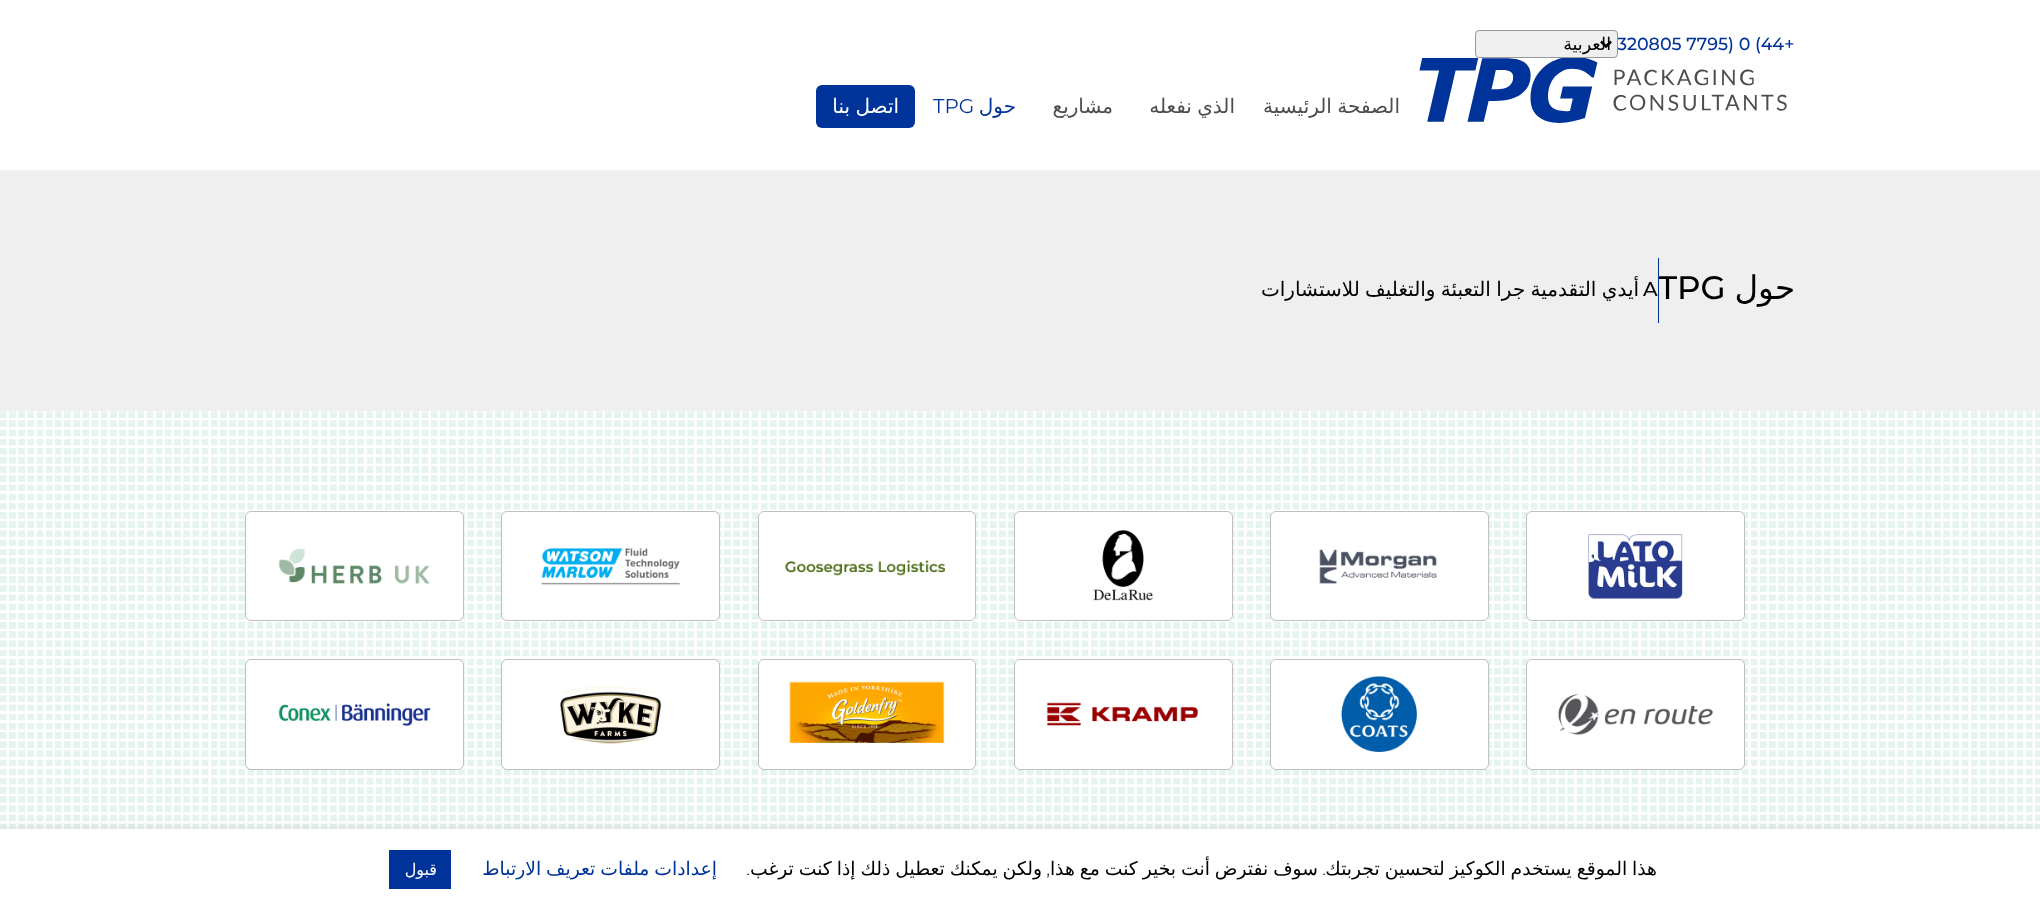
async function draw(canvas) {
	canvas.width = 2040;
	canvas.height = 909;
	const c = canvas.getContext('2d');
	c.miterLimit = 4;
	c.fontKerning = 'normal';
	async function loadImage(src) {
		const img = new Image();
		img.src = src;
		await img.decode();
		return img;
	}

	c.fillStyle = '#fff';
	c.fillRect(0, 0, 2040, 909);
	c.font = '500 17.5px Montserrat';
	c.fillStyle = '#039';
	c.fillText('320805 7795) 0 (44+', 1617, 50);
	c.fillStyle = '#efefef';
	c.beginPath();
	c.roundRect(1475.5, 30.5, 142, 27, 3.5);
	c.fill();
	c.strokeStyle = '#999';
	c.stroke();
	c.beginPath();
	c.moveTo(1601, 41.5);
	c.lineTo(1606, 46.5);
	c.lineTo(1611, 41.5);
	c.strokeStyle = '#000';
	c.lineWidth = 2.5;
	c.stroke();
	c.direction = 'rtl';
	c.font = '17.5px DejaVu Sans';
	c.fillStyle = '#000';
	c.fillText('العربية', 1611, 50);
	c.drawImage(await loadImage('img1.png'), 1419, 58, 368, 65);
	c.wordSpacing = '-1px';
	c.font = '20px DejaVu Sans';
	c.fillStyle = '#4d4d4d';
	c.fillText('الصفحة الرئيسية', 1400, 113);
	c.fillText('الذي نفعله', 1235, 113);
	c.wordSpacing = '0px';
	c.fillText('مشاريع', 1113, 113);
	c.fillStyle = '#039';
	c.fillText('حول', 1016, 113);
	c.direction = 'ltr';
	c.font = '20px Montserrat';
	c.fillText('TPG', 933, 113);
	c.beginPath();
	c.roundRect(816, 85, 99, 43, 6);
	c.fill();
	c.wordSpacing = '-1px';
	c.direction = 'rtl';
	c.font = '20px DejaVu Sans';
	c.fillStyle = '#fff';
	c.fillText('اتصل بنا', 899, 113);
	c.fillStyle = '#efefef';
	c.fillRect(0, 170, 2040, 241);
	c.wordSpacing = '0px';
	c.font = '32.5px DejaVu Sans';
	c.fillStyle = '#000';
	c.fillText('حول', 1795, 299);
	c.direction = 'ltr';
	c.font = '500 20px Montserrat';
	c.fillText('A', 1643, 296);
	c.font = '500 32.5px Montserrat';
	c.fillText('TPG', 1658, 299);
	c.fillStyle = '#039';
	c.fillRect(1658, 258, 1, 65);
	c.wordSpacing = '-1px';
	c.direction = 'rtl';
	c.font = '20px DejaVu Sans';
	c.fillStyle = '#000';
	c.fillText('أيدي التقدمية جرا التعبئة والتغليف للاستشارات', 1639, 296);
	c.drawImage(await loadImage('img2.png'), 0, 411, 2040, 418);
	c.fillStyle = '#fff';
	c.beginPath();
	c.roundRect(1526, 511, 219, 110, 6);
	c.fill();
	c.beginPath();
	c.roundRect(1526.5, 511.5, 218, 109, 5.5);
	c.strokeStyle = '#00000040';
	c.lineWidth = 1;
	c.stroke();
	c.drawImage(await loadImage('img3.png'), 1588, 534, 95, 65);
	c.beginPath();
	c.roundRect(1270, 511, 219, 110, 6);
	c.fill();
	c.beginPath();
	c.roundRect(1270.5, 511.5, 218, 109, 5.5);
	c.stroke();
	c.drawImage(await loadImage('img4.png'), 1319, 549, 118, 35);
	c.beginPath();
	c.roundRect(1014, 511, 219, 110, 6);
	c.fill();
	c.beginPath();
	c.roundRect(1014.5, 511.5, 218, 109, 5.5);
	c.stroke();
	c.drawImage(await loadImage('img5.png'), 1093, 530, 60, 71);
	c.beginPath();
	c.roundRect(758, 511, 218, 110, 6);
	c.fill();
	c.beginPath();
	c.roundRect(758.5, 511.5, 217, 109, 5.5);
	c.stroke();
	c.drawImage(await loadImage('img6.png'), 785, 560, 160, 16);
	c.beginPath();
	c.roundRect(501, 511, 219, 110, 6);
	c.fill();
	c.beginPath();
	c.roundRect(501.5, 511.5, 218, 109, 5.5);
	c.stroke();
	c.drawImage(await loadImage('img7.png'), 541, 548, 139, 37);
	c.beginPath();
	c.roundRect(245, 511, 219, 110, 6);
	c.fill();
	c.beginPath();
	c.roundRect(245.5, 511.5, 218, 109, 5.5);
	c.stroke();
	c.drawImage(await loadImage('img8.png'), 278, 548, 152, 36);
	c.beginPath();
	c.roundRect(1526, 659, 219, 111, 6);
	c.fill();
	c.beginPath();
	c.roundRect(1526.5, 659.5, 218, 110, 5.5);
	c.stroke();
	c.drawImage(await loadImage('img9.png'), 1558, 694, 155, 41);
	c.beginPath();
	c.roundRect(1270, 659, 219, 111, 6);
	c.fill();
	c.beginPath();
	c.roundRect(1270.5, 659.5, 218, 110, 5.5);
	c.stroke();
	c.drawImage(await loadImage('img10.png'), 1341, 676, 76, 76);
	c.beginPath();
	c.roundRect(1014, 659, 219, 111, 6);
	c.fill();
	c.beginPath();
	c.roundRect(1014.5, 659.5, 218, 110, 5.5);
	c.stroke();
	c.drawImage(await loadImage('img11.png'), 1046, 702, 152, 24);
	c.beginPath();
	c.roundRect(758, 659, 218, 111, 6);
	c.fill();
	c.beginPath();
	c.roundRect(758.5, 659.5, 217, 110, 5.5);
	c.stroke();
	c.drawImage(await loadImage('img12.png'), 789, 681, 156, 62);
	c.beginPath();
	c.roundRect(501, 659, 219, 111, 6);
	c.fill();
	c.beginPath();
	c.roundRect(501.5, 659.5, 218, 110, 5.5);
	c.stroke();
	c.drawImage(await loadImage('img13.png'), 560, 686, 102, 58);
	c.beginPath();
	c.roundRect(245, 659, 219, 111, 6);
	c.fill();
	c.beginPath();
	c.roundRect(245.5, 659.5, 218, 110, 5.5);
	c.stroke();
	c.drawImage(await loadImage('img14.png'), 278, 703, 153, 24);
	c.fillStyle = '#acabab4d';
	c.filter = 'blur(6px)';
	c.beginPath();
	c.rect(0, 828, 2040, 81);
	c.fill();
	c.filter = 'none';
	c.fillStyle = '#fff';
	c.fillRect(0, 829, 2040, 80);
	c.font = '18.75px DejaVu Sans';
	c.fillStyle = '#000';
	c.fillText('هذا الموقع يستخدم الكوكيز لتحسين تجربتك', 1657, 875);
	c.wordSpacing = '0px';
	c.font = '300 18.75px Montserrat';
	c.fillText('.', 1326, 875);
	c.wordSpacing = '-1px';
	c.font = '18.75px DejaVu Sans';
	c.fillText('سوف نفترض أنت بخير كنت مع هذا', 1318, 875);
	c.wordSpacing = '0px';
	c.font = '300 18.75px Montserrat';
	c.fillText(',', 1050, 875);
	c.wordSpacing = '-1px';
	c.font = '18.75px DejaVu Sans';
	c.fillText('ولكن يمكنك تعطيل ذلك إذا كنت ترغب', 1042, 875);
	c.wordSpacing = '0px';
	c.font = '300 18.75px Montserrat';
	c.fillText('.', 750, 875);
	c.wordSpacing = '-1px';
	c.font = '18.75px DejaVu Sans';
	c.fillStyle = '#039';
	c.fillText('إعدادات ملفات تعريف الارتباط', 717, 875);
	c.fillRect(389, 850, 62, 39);
	c.wordSpacing = '0px';
	c.font = '16px DejaVu Sans';
	c.fillStyle = '#fff';
	c.fillText('قبول', 437, 875);
}

draw(document.querySelector('canvas'));
